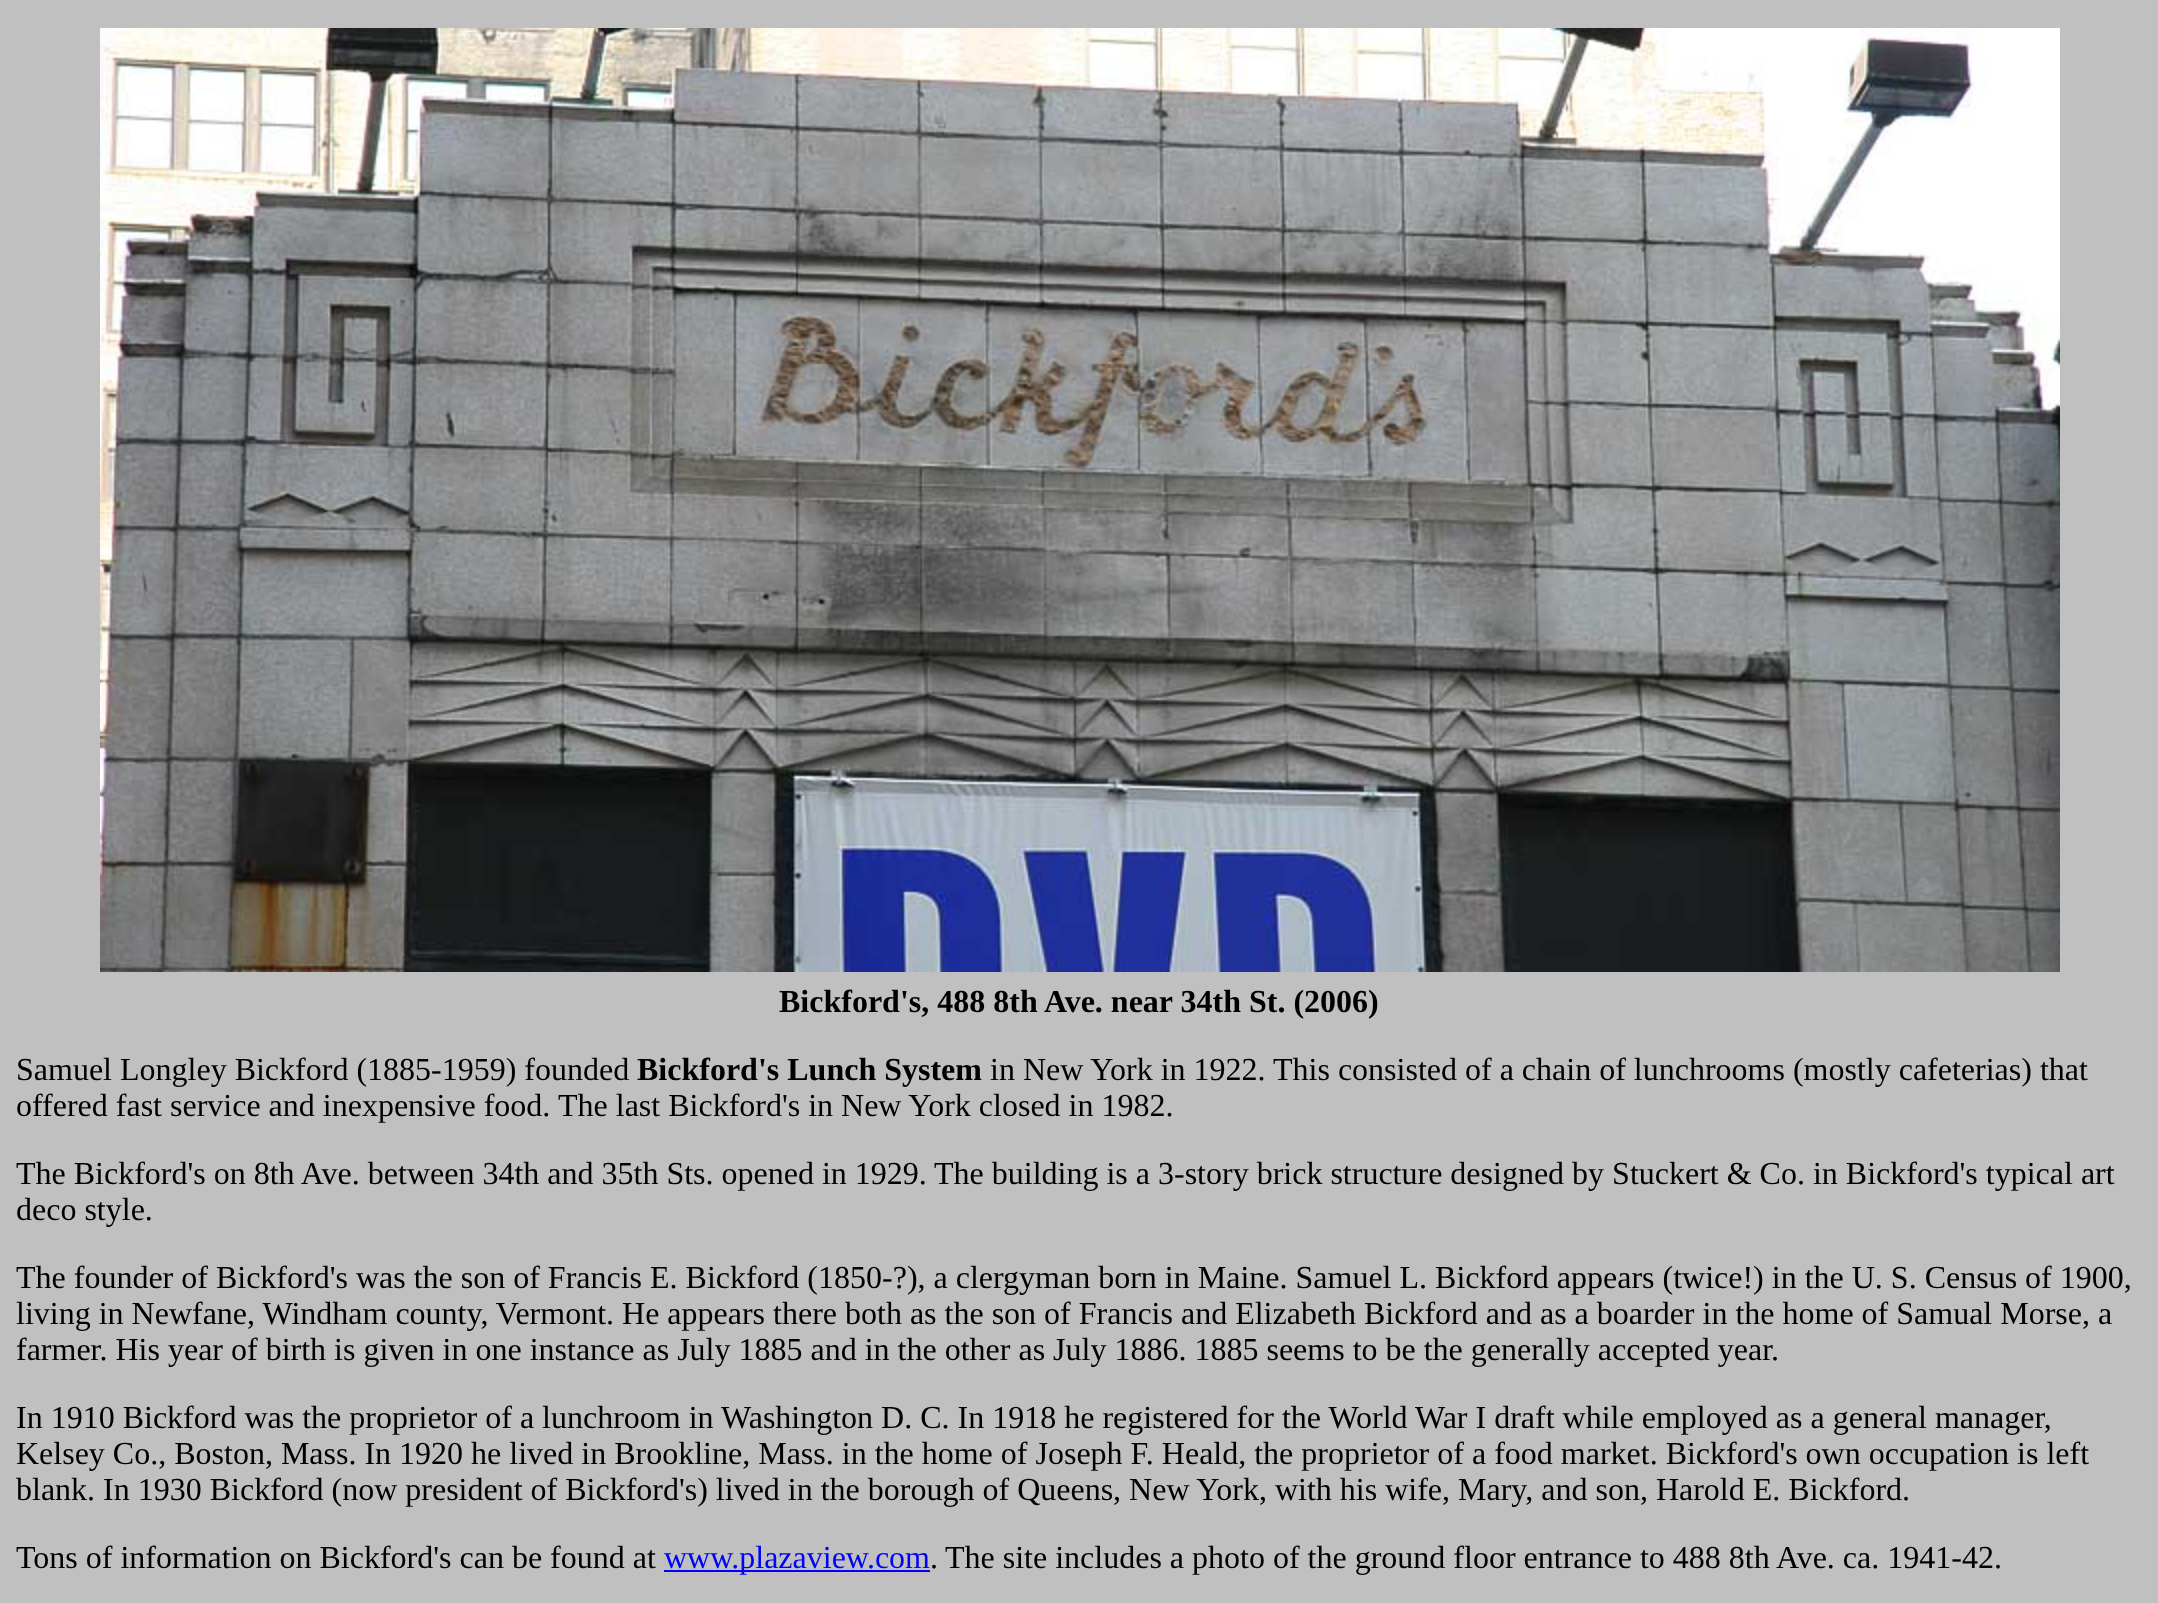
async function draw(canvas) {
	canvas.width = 2158;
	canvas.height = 1603;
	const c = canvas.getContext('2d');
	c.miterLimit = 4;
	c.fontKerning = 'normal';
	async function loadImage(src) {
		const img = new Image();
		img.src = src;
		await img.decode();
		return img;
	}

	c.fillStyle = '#c0c0c0';
	c.fillRect(0, 0, 2158, 1603);
	c.drawImage(await loadImage('img1.png'), 100, 28, 1960, 944);
	c.font = 'bold 32px Liberation Serif';
	c.fillStyle = '#000';
	c.fillText('Bickford\'s, 488 8th Ave. near 34th St. (2006)', 779, 1012);
	c.font = '32px Liberation Serif';
	c.fillText('Samuel Longley Bickford (1885-1959) founded', 16, 1080);
	c.font = 'bold 32px Liberation Serif';
	c.fillText('Bickford\'s Lunch System', 637, 1080);
	c.font = '32px Liberation Serif';
	for (const [text, x, y] of [
		['in New York in 1922.', 990, 1080],
		['This consisted of a chain of lunchrooms (mostly cafeterias) that', 1273, 1080],
		['offered fast service and inexpensive food.', 16, 1116],
		['The last Bickford\'s in New York closed in 1982.', 558, 1116],
		['The Bickford\'s on 8th Ave. between 34th and 35th Sts. opened in 1929.', 16, 1184],
		['The building is a 3-story brick structure designed by Stuckert & Co. in Bickford\'s typical art', 934, 1184],
		['deco style.', 16, 1220],
		['The founder of Bickford\'s was the son of Francis E. Bickford (1850-?), a clergyman born in Maine. Samuel L. Bickford appears (twice!) in the U. S. Census of 1900,', 16, 1288],
		['living in Newfane, Windham county, Vermont. He appears there both as the son of Francis and Elizabeth Bickford and as a boarder in the home of Samual Morse, a', 16, 1324],
		['farmer. His year of birth is given in one instance as July 1885 and in the other as July 1886. 1885 seems to be the generally accepted year.', 16, 1360],
		['In 1910 Bickford was the proprietor of a lunchroom in Washington D. C. In 1918 he registered for the World War I draft while employed as a general manager,', 16, 1428],
		['Kelsey Co., Boston, Mass. In 1920 he lived in Brookline, Mass. in the home of Joseph F. Heald, the proprietor of a food market. Bickford\'s own occupation is left', 16, 1464],
		['blank. In 1930 Bickford (now president of Bickford\'s) lived in the borough of Queens, New York, with his wife, Mary, and son, Harold E. Bickford.', 16, 1500],
		['Tons of information on Bickford\'s can be found at', 16, 1568],
	]) {
		c.fillText(text, x, y);
	}
	c.fillStyle = '#00f';
	c.fillRect(664, 1570, 266, 2);
	c.fillText('www.plazaview.com', 664, 1568);
	c.fillStyle = '#000';
	c.fillText('.', 930, 1568);
	c.fillText('The site includes a photo of the ground floor entrance to 488 8th Ave. ca. 1941-42.', 945, 1568);
}

draw(document.querySelector('canvas'));
